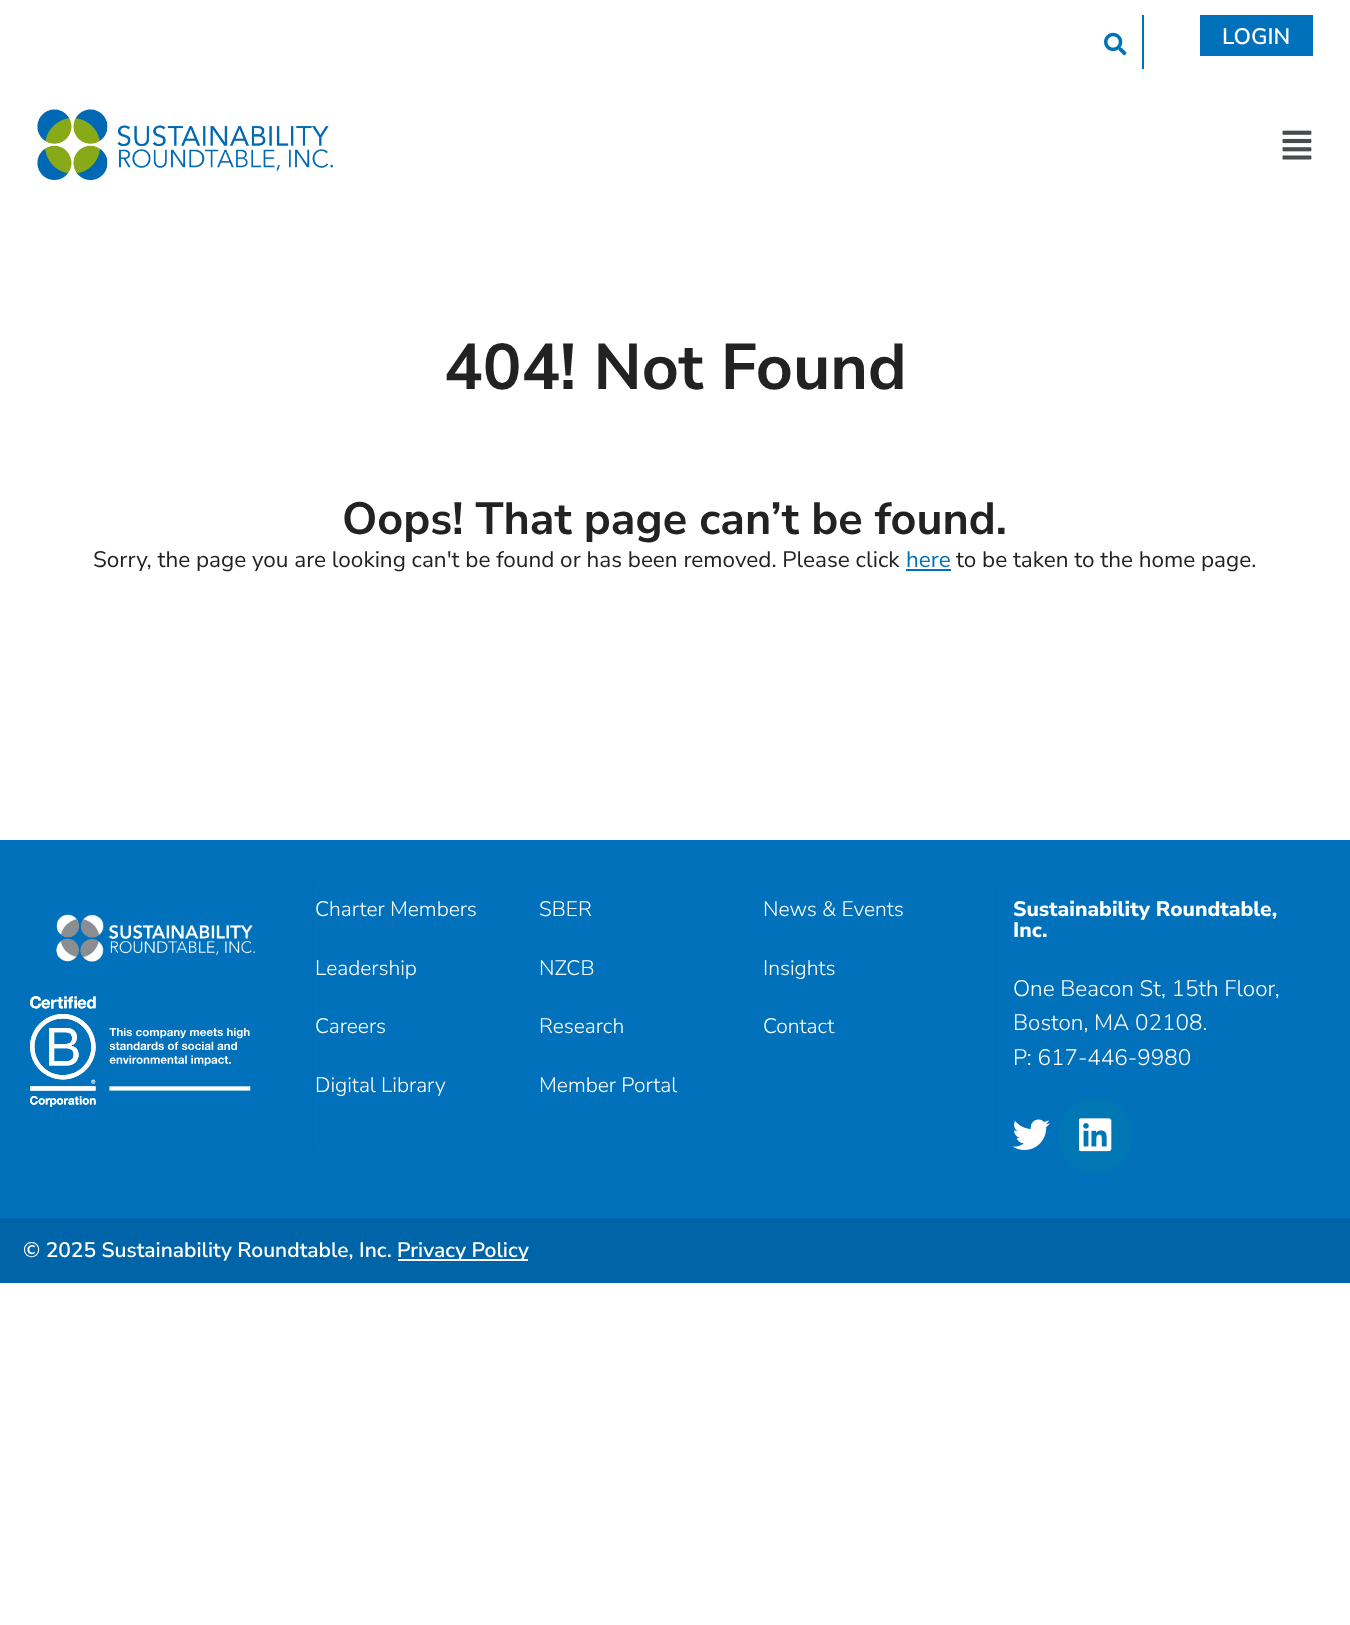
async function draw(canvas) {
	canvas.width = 1350;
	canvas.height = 1625;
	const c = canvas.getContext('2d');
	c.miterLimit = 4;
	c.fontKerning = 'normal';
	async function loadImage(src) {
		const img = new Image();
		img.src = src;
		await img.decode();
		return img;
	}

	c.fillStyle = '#fff';
	c.fillRect(0, 0, 1350, 1625);
	c.fillStyle = '#0072bc';
	c.fillRect(1142, 15, 2, 54);
	c.drawImage(await loadImage('img1.png'), 1104, 32, 23, 24);
	c.fillStyle = '#0171bb';
	c.fillRect(1200, 15, 113, 41);
	c.font = '600 22.5px Nunito Sans';
	c.fillStyle = '#fff';
	c.fillText('LOGIN', 1222, 44);
	c.drawImage(await loadImage('img2.png'), 37, 109, 296, 71);
	c.drawImage(await loadImage('img3.png'), 1282, 130, 30, 30);
	c.font = 'bold 64.5px Nunito Sans';
	c.fillStyle = '#222';
	c.fillText('404! Not Found', 444, 389);
	c.font = 'bold 45px Nunito Sans';
	c.fillText('Oops! That page can’t be found.', 342, 534);
	c.font = '22.5px Nunito Sans';
	c.fillText('Sorry, the page you are looking can\'t be found or has been removed. Please click', 93, 567);
	c.fillStyle = '#0171bb';
	c.fillText('here', 906, 567);
	c.fillRect(906, 569, 45, 2);
	c.fillStyle = '#222';
	c.fillText('to be taken to the home page.', 956, 567);
	c.fillStyle = '#0171bb';
	c.fillRect(0, 840, 1350, 378);
	c.drawImage(await loadImage('img4.png'), 56, 914, 199, 48);
	c.drawImage(await loadImage('img5.png'), 30, 996, 221, 111);
	c.fillStyle = '#016eb6';
	c.fillRect(995, 885, 3, 264);
	c.fillRect(312, 885, 3, 264);
	c.font = '300 21px Nunito Sans';
	c.fillStyle = '#fff';
	for (const [text, x, y] of [
		['Charter Members', 315, 916],
		['SBER', 539, 916],
		['News & Events', 763, 916],
		['Leadership', 315, 975],
		['NZCB', 539, 975],
		['Insights', 763, 975],
		['Careers', 315, 1033],
		['Research', 539, 1033],
		['Contact', 763, 1033],
		['Digital Library', 315, 1092],
		['Member Portal', 539, 1092],
	]) {
		c.fillText(text, x, y);
	}
	c.font = '800 21px Nunito Sans';
	c.fillText('Sustainability Roundtable,', 1013, 916);
	c.fillText('Inc.', 1013, 937);
	c.font = '300 22.5px Nunito Sans';
	for (const [text, x, y] of [
		['One Beacon St, 15th Floor,', 1013, 996],
		['Boston, MA 02108.', 1013, 1030],
		['P: 617-446-9980', 1013, 1065],
	]) {
		c.fillText(text, x, y);
	}
	c.drawImage(await loadImage('img6.png'), 1013, 1119, 37, 31);
	c.fillStyle = '#0077b5';
	c.beginPath();
	c.arc(1095.5, 1135.5, 37.5, 0, 2 * Math.PI);
	c.fill();
	c.drawImage(await loadImage('img7.png'), 1079, 1118, 33, 34);
	c.fillStyle = '#0065a8';
	c.fillRect(0, 1218, 1350, 65);
	c.font = '600 21px Nunito Sans';
	c.fillStyle = '#fff';
	c.fillText('© 2025 Sustainability Roundtable, Inc.', 23, 1257);
	c.fillRect(398, 1259, 130, 2);
	c.fillText('Privacy Policy', 397, 1257);
}

draw(document.querySelector('canvas'));
